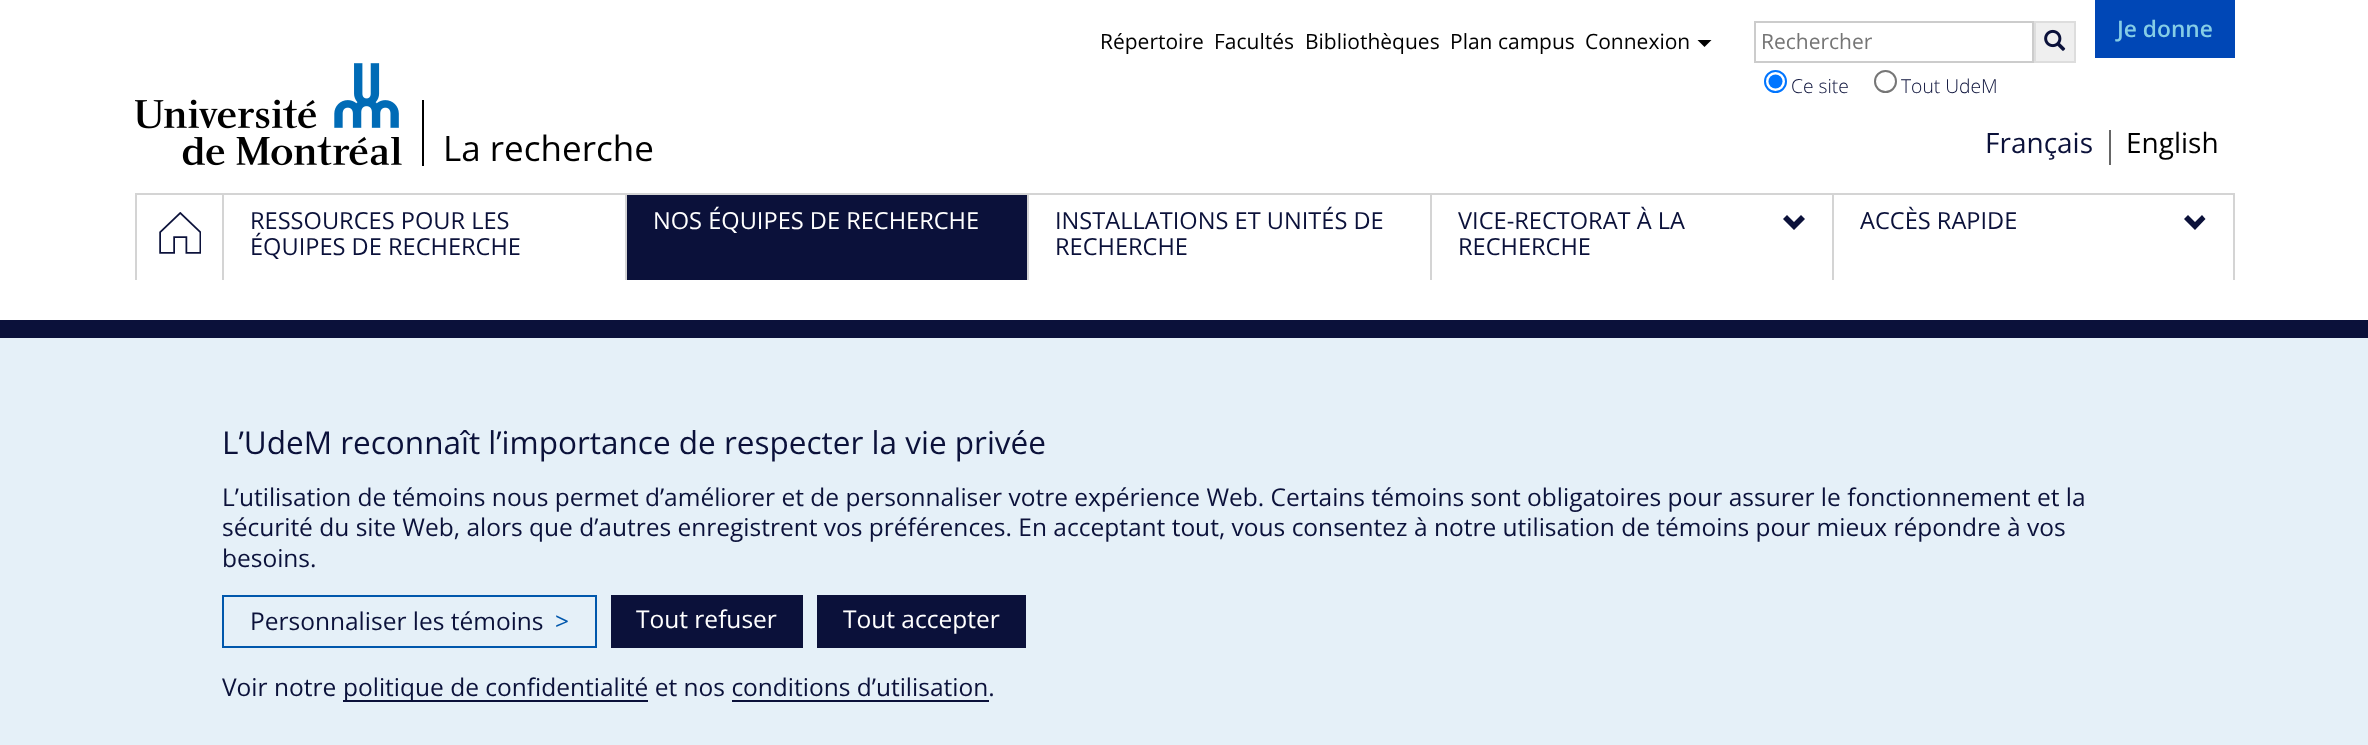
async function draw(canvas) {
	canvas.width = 2368;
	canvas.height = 745;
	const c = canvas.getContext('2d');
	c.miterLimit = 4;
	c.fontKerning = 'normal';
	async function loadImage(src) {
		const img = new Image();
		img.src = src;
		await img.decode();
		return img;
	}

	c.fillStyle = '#fff';
	c.fillRect(0, 0, 2368, 745);
	c.font = '21px Open Sans';
	c.fillStyle = '#000';
	for (const [text, x, y] of [
		['Répertoire', 1100, 49],
		['Facultés', 1214, 49],
		['Bibliothèques', 1305, 49],
		['Plan campus', 1450, 49],
		['Connexion', 1585, 49],
	]) {
		c.fillText(text, x, y);
	}
	c.beginPath();
	c.moveTo(1697.5, 40);
	c.lineTo(1711.5, 40);
	c.lineTo(1704.5, 47);
	c.closePath();
	c.fill();
	c.strokeStyle = '#ccc';
	c.lineWidth = 2;
	c.strokeRect(1755, 22, 278, 40);
	c.fillStyle = '#757575';
	c.fillText('Rechercher', 1761, 49);
	c.fillStyle = '#efefef';
	c.beginPath();
	c.rect(2035, 22, 40, 40);
	c.fill();
	c.strokeStyle = '#ddd';
	c.stroke();
	c.drawImage(await loadImage('img1.png'), 2044, 29, 22, 22);
	c.beginPath();
	c.arc(1775.5, 81.5, 10.5, 0, 2 * Math.PI);
	c.strokeStyle = '#0075ff';
	c.stroke();
	c.fillStyle = '#0075ff';
	c.beginPath();
	c.arc(1775.5, 81.5, 7, 0, 2 * Math.PI);
	c.fill();
	c.font = '300 19.25px Open Sans';
	c.fillStyle = '#0b113a';
	c.fillText('Ce site', 1791, 93);
	c.beginPath();
	c.arc(1885.5, 81.5, 10.5, 0, 2 * Math.PI);
	c.strokeStyle = '#767676';
	c.stroke();
	c.fillText('Tout UdeM', 1901, 93);
	c.fillStyle = '#0047b6';
	c.fillRect(2095, 0, 140, 58);
	c.font = '600 22.75px Open Sans';
	c.fillStyle = '#85cde6';
	c.fillText('Je donne', 2117, 37);
	c.drawImage(await loadImage('img2.png'), 135, 63, 267, 103);
	c.fillStyle = '#000';
	c.fillRect(422, 100, 2, 66);
	c.font = '35px Open Sans';
	c.fillText('La recherche', 443, 161);
	c.font = '28px Open Sans';
	c.fillStyle = '#0b113a';
	c.fillText('Français', 1985, 153);
	c.fillStyle = '#666';
	c.fillRect(2109, 130, 2, 35);
	c.fillStyle = '#000';
	c.fillText('English', 2126, 153);
	c.fillStyle = '#d4d4d4';
	c.fillRect(135, 193, 2100, 2);
	c.fillRect(135, 193, 2, 87);
	c.drawImage(await loadImage('img3.png'), 159, 212, 42, 42);
	c.fillRect(222, 193, 2, 87);
	c.font = '23.6px Open Sans';
	c.fillStyle = '#0b113a';
	c.fillText('RESSOURCES POUR LES', 250, 229);
	c.fillText('ÉQUIPES DE RECHERCHE', 250, 255);
	c.fillRect(627, 195, 400, 85);
	c.fillStyle = '#d4d4d4';
	c.fillRect(625, 193, 2, 87);
	c.fillStyle = '#fff';
	c.fillText('NOS ÉQUIPES DE RECHERCHE', 653, 229);
	c.fillStyle = '#d4d4d4';
	c.fillRect(1027, 193, 2, 87);
	c.fillStyle = '#0b113a';
	c.fillText('INSTALLATIONS ET UNITÉS DE', 1055, 229);
	c.fillText('RECHERCHE', 1055, 255);
	c.fillStyle = '#d4d4d4';
	c.fillRect(1430, 193, 2, 87);
	c.fillStyle = '#0b113a';
	c.fillText('VICE-RECTORAT À LA', 1458, 229);
	c.beginPath();
	c.moveTo(1805, 219);
	c.lineTo(1794, 230);
	c.lineTo(1783, 219);
	c.lineTo(1787, 215);
	c.lineTo(1794, 222);
	c.lineTo(1801, 215);
	c.closePath();
	c.fill();
	c.fillText('RECHERCHE', 1458, 255);
	c.fillStyle = '#d4d4d4';
	c.fillRect(2233, 193, 2, 87);
	c.fillRect(1832, 193, 2, 87);
	c.fillStyle = '#0b113a';
	c.fillText('ACCÈS RAPIDE', 1860, 229);
	c.beginPath();
	c.moveTo(2205.5, 219);
	c.lineTo(2195, 230);
	c.lineTo(2184, 219);
	c.lineTo(2188, 215);
	c.lineTo(2195, 222);
	c.lineTo(2202, 215);
	c.closePath();
	c.fill();
	c.fillStyle = '#e5f0f8';
	c.fillRect(0, 338, 2368, 407);
	c.fillStyle = '#0b113a';
	c.fillRect(0, 320, 2368, 18);
	c.font = '31.5px Open Sans';
	c.fillText('L’UdeM reconnaît l’importance de respecter la vie privée', 222, 454);
	c.font = '24.5px Open Sans';
	for (const [text, x, y] of [
		['L’utilisation de témoins nous permet d’améliorer et de personnaliser votre expérience Web. Certains témoins sont obligatoires pour assurer le fonctionnement et la', 222, 506],
		['sécurité du site Web, alors que d’autres enregistrent vos préférences. En acceptant tout, vous consentez à notre utilisation de témoins pour mieux répondre à vos', 222, 536],
		['besoins.', 222, 567],
	]) {
		c.fillText(text, x, y);
	}
	c.strokeStyle = '#0057ac';
	c.strokeRect(223, 596, 373, 51);
	c.fillText('Personnaliser les témoins', 250, 630);
	c.fillStyle = '#0057ac';
	c.fillText('>', 555, 630);
	c.fillStyle = '#0b113a';
	c.fillRect(611, 595, 192, 53);
	c.fillStyle = '#fff';
	c.fillText('Tout refuser', 636, 628);
	c.fillStyle = '#0b113a';
	c.fillRect(817, 595, 209, 53);
	c.fillStyle = '#fff';
	c.fillText('Tout accepter', 843, 628);
	c.fillStyle = '#0b113a';
	c.fillText('Voir notre', 222, 696);
	c.fillRect(343, 700, 305, 2);
	c.fillText('politique de confidentialité et nos conditions d’utilisation.', 343, 696);
	c.fillRect(732, 700, 257, 2);
}

draw(document.querySelector('canvas'));
